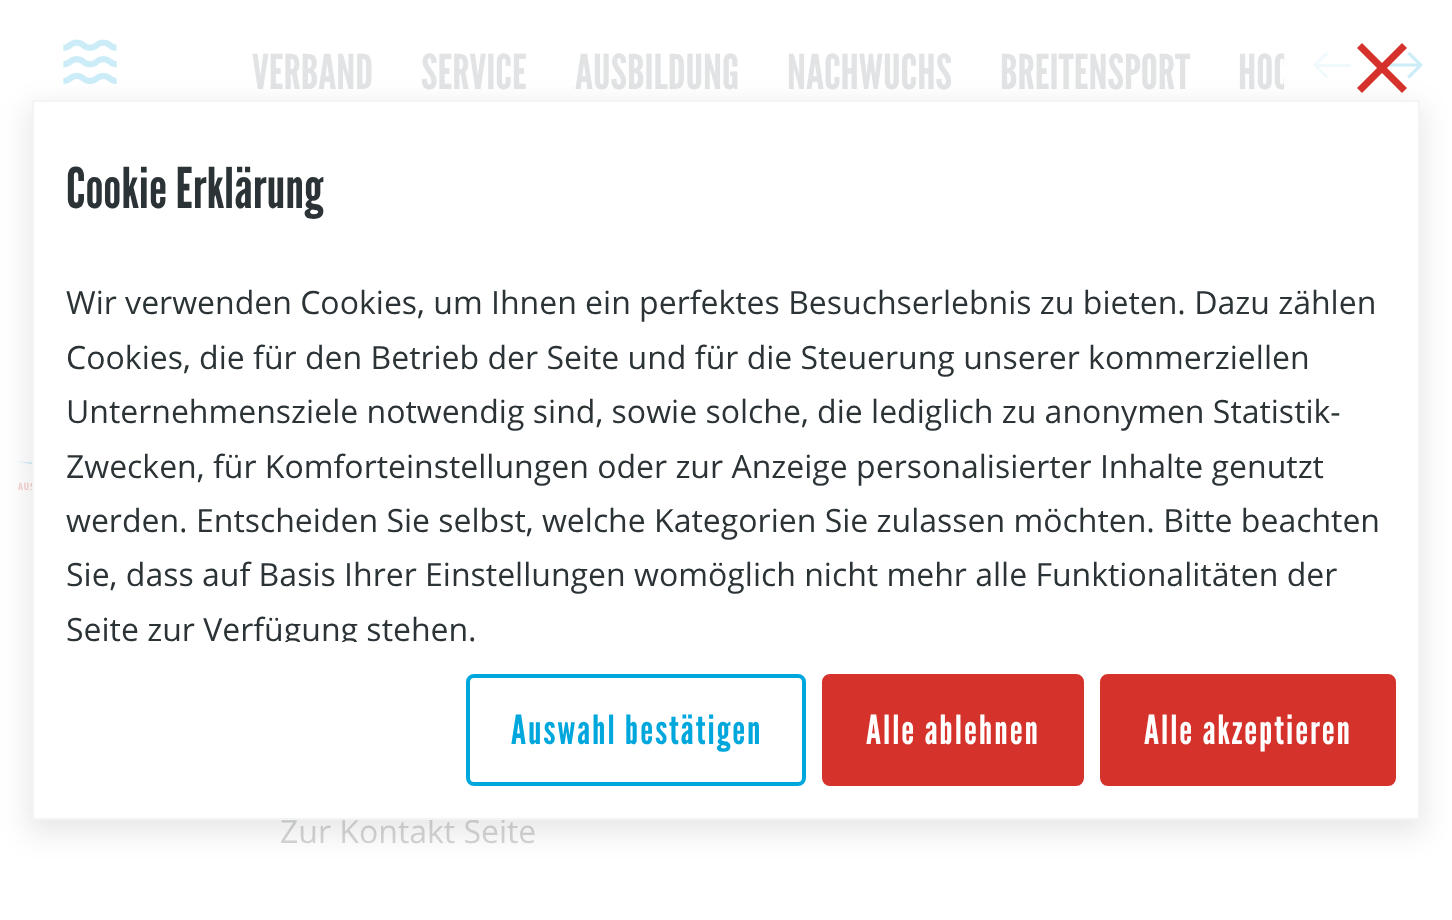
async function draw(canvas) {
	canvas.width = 1452;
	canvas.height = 920;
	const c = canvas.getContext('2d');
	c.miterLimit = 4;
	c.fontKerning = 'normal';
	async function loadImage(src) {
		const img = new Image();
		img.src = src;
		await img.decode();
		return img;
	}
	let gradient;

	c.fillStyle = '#fff';
	c.fillRect(0, 0, 1452, 920);
	c.drawImage(await loadImage('img1.png'), 63, 39, 54, 46);
	c.drawImage(await loadImage('img2.png'), 16, 461, 16, 29);
	c.font = '48px League Gothic';
	c.fillStyle = '#e1e3e4';
	for (const [text, x, y] of [
		['VERBAND', 252, 89],
		['SERVICE', 421, 89],
		['AUSBILDUNG', 575, 89],
		['NACHWUCHS', 787, 89],
		['BREITENSPORT', 1000, 89],
		['HOC', 1238, 89],
	]) {
		c.fillText(text, x, y);
	}
	gradient = c.createLinearGradient(1452, 64, 1284, 64);
	gradient.addColorStop(0, '#fff');
	gradient.addColorStop(1, '#fffffff2');
	c.fillStyle = gradient;
	c.fillRect(1284, 53, 5, 36);
	c.fillStyle = '#ccedf84d';
	c.beginPath();
	c.moveTo(1326, 78.5);
	c.lineTo(1313, 65);
	c.lineTo(1326, 52);
	c.lineTo(1328.5, 54);
	c.lineTo(1318.5, 64);
	c.lineTo(1351, 64);
	c.lineTo(1351, 67);
	c.lineTo(1318.5, 67);
	c.lineTo(1328.5, 76.5);
	c.closePath();
	c.fill();
	c.fillStyle = '#ccedf8';
	c.beginPath();
	c.moveTo(1409.5, 78.5);
	c.lineTo(1407, 76.5);
	c.lineTo(1417, 66.5);
	c.lineTo(1385, 66.5);
	c.lineTo(1385, 63.5);
	c.lineTo(1417, 63.5);
	c.lineTo(1407.5, 54);
	c.lineTo(1409.5, 51.5);
	c.lineTo(1423, 65);
	c.closePath();
	c.fill();
	c.font = '32px Open Sans';
	c.fillStyle = '#d5d6d7';
	c.fillText('Zur Kontakt Seite', 280, 843);
	c.fillStyle = '#00000017';
	c.filter = 'blur(14px)';
	c.beginPath();
	c.rect(28, 106, 1396, 728);
	c.fill();
	c.filter = 'none';
	c.fillStyle = '#fff';
	c.beginPath();
	c.rect(33, 101, 1386, 718);
	c.fill();
	c.strokeStyle = '#f3f4f4';
	c.lineWidth = 2;
	c.stroke();
	c.fillStyle = '#d6322c';
	c.beginPath();
	c.moveTo(1402, 43);
	c.lineTo(1407, 48);
	c.lineTo(1362, 93);
	c.lineTo(1357, 88);
	c.closePath();
	c.fill();
	c.beginPath();
	c.moveTo(1357, 48);
	c.lineTo(1362, 43);
	c.lineTo(1407, 88);
	c.lineTo(1402, 93);
	c.closePath();
	c.fill();
	c.font = '56px League Gothic';
	c.fillStyle = '#2b3336';
	c.fillText('Cookie Erklärung', 66, 208);
	c.font = '32px Open Sans';
	for (const [text, x, y] of [
		['Wir verwenden Cookies, um Ihnen ein perfektes Besuchserlebnis zu bieten. Dazu zählen', 66, 314],
		['Cookies, die für den Betrieb der Seite und für die Steuerung unserer kommerziellen', 66, 369],
		['Unternehmensziele notwendig sind, sowie solche, die lediglich zu anonymen Statistik-', 66, 423],
		['Zwecken, für Komforteinstellungen oder zur Anzeige personalisierter Inhalte genutzt', 66, 478],
		['werden. Entscheiden Sie selbst, welche Kategorien Sie zulassen möchten. Bitte beachten', 66, 532],
		['Sie, dass auf Basis Ihrer Einstellungen womöglich nicht mehr alle Funktionalitäten der', 66, 586],
	]) {
		c.fillText(text, x, y);
	}
	c.save();
	c.beginPath();
	c.rect(66, 150, 1320, 492);
	c.clip();
	c.fillText('Seite zur Verfügung stehen.', 66, 641);
	c.restore();
	c.beginPath();
	c.roundRect(468, 676, 336, 108, 6);
	c.strokeStyle = '#00a7dd';
	c.lineWidth = 4;
	c.stroke();
	c.letterSpacing = '2px';
	c.font = '40px League Gothic';
	c.fillStyle = '#00a7dd';
	c.fillText('Auswahl bestätigen', 511, 744);
	c.fillStyle = '#d6322c';
	c.beginPath();
	c.roundRect(824, 676, 258, 108, 6);
	c.fill();
	c.strokeStyle = '#d6322c';
	c.stroke();
	c.fillStyle = '#fff';
	c.fillText('Alle ablehnen', 866, 744);
	c.fillStyle = '#d6322c';
	c.beginPath();
	c.roundRect(1102, 676, 292, 108, 6);
	c.fill();
	c.stroke();
	c.fillStyle = '#fff';
	c.fillText('Alle akzeptieren', 1144, 744);
}

draw(document.querySelector('canvas'));
